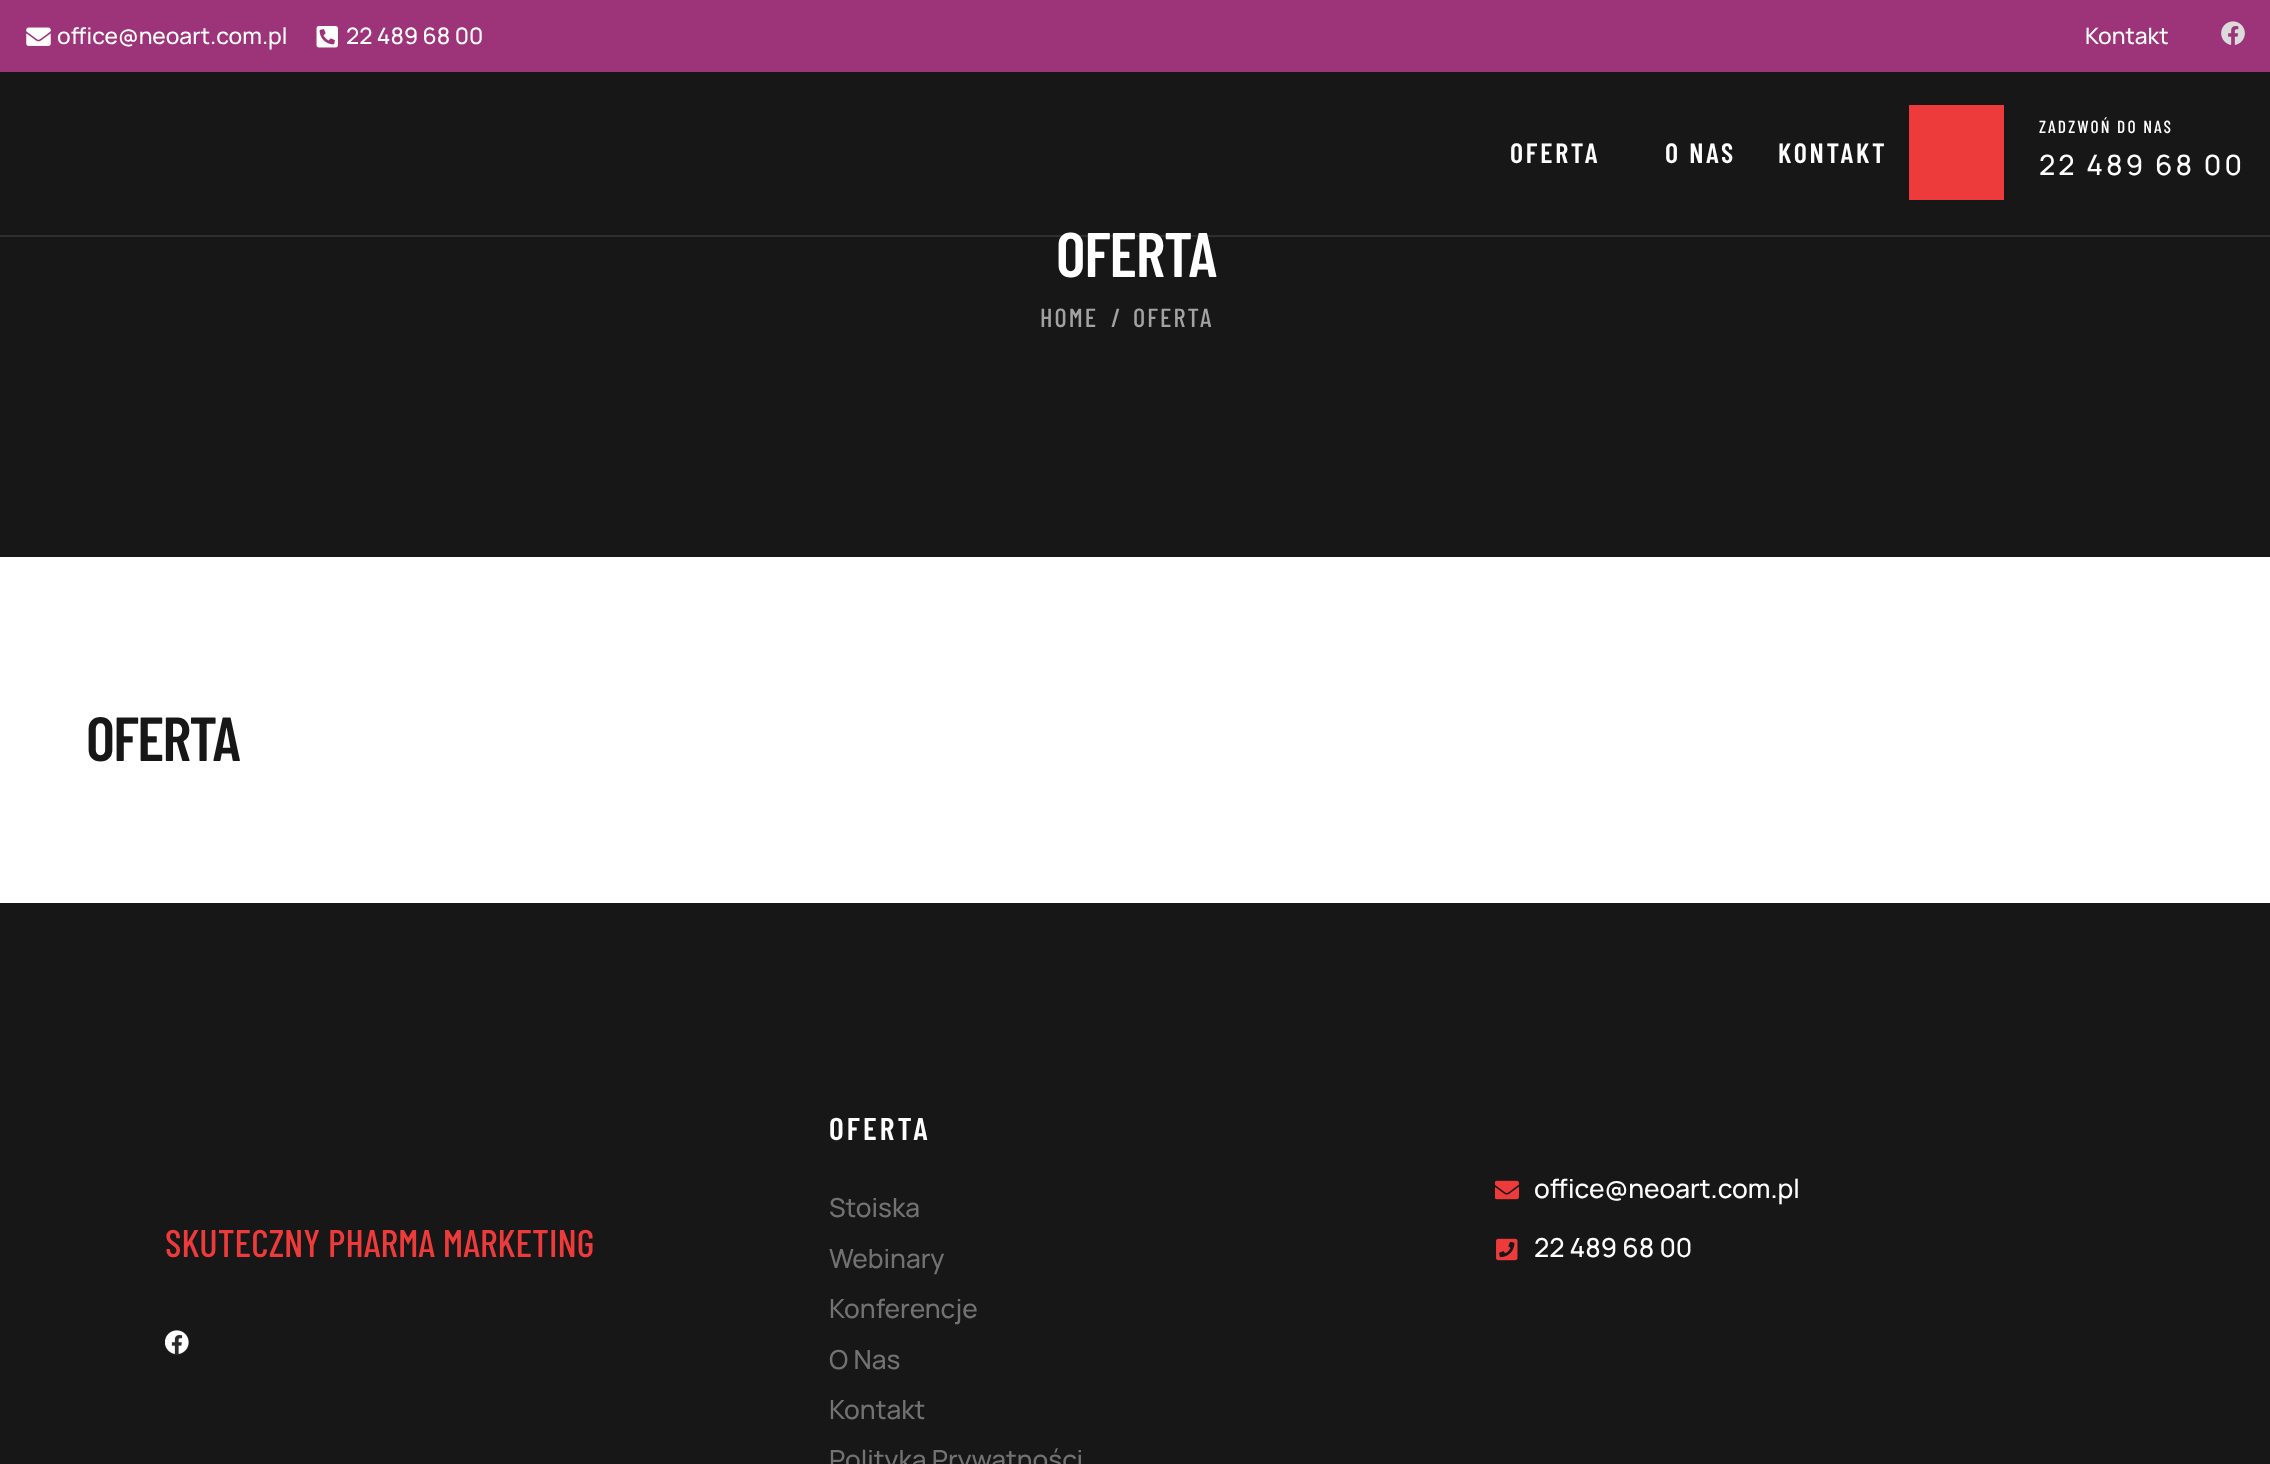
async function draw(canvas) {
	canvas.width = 2270;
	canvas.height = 1464;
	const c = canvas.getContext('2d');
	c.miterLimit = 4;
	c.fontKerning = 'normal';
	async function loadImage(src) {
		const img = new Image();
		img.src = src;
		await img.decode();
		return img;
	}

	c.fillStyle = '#fff';
	c.fillRect(0, 0, 2270, 1464);
	c.fillStyle = '#9d3378';
	c.fillRect(0, 0, 2270, 72);
	c.drawImage(await loadImage('img1.png'), 26, 27, 25, 19);
	c.font = '500 22.75px Manrope';
	c.fillStyle = '#fff';
	c.fillText('office@neoart.com.pl', 57, 44);
	c.drawImage(await loadImage('img2.png'), 316, 26, 22, 22);
	c.fillText('22 489 68 00', 346, 44);
	c.fillText('Kontakt', 2085, 44);
	c.drawImage(await loadImage('img3.png'), 2221, 21, 24, 24);
	c.fillStyle = '#171717';
	c.fillRect(0, 72, 2270, 485);
	c.fillStyle = '#ffffff1a';
	c.fillRect(0, 235, 2270, 2);
	c.letterSpacing = '2.75px';
	c.font = '600 28px Barlow Condensed';
	c.fillStyle = '#fff';
	for (const [text, x, y] of [
		['OFERTA', 1510, 163],
		['O NAS', 1665, 163],
		['KONTAKT', 1778, 163],
	]) {
		c.fillText(text, x, y);
	}
	c.fillStyle = '#ed3b3b';
	c.fillRect(1909, 105, 95, 95);
	c.letterSpacing = '2.1px';
	c.font = '500 17.5px Barlow Condensed';
	c.fillStyle = '#fff';
	c.fillText('ZADZWOŃ DO NAS', 2039, 133);
	c.letterSpacing = '3.1px';
	c.font = '500 28px Manrope';
	c.fillText('22 489 68 00', 2039, 175);
	c.letterSpacing = '-1px';
	c.font = '600 63px Barlow Condensed';
	c.fillText('OFERTA', 1056, 277);
	c.letterSpacing = '2.1px';
	c.font = '500 26.25px Barlow Condensed';
	c.fillStyle = '#a2a2a2';
	for (const [text, x, y] of [
		['HOME', 1040, 327],
		['/', 1111, 327],
		['OFERTA', 1133, 327],
	]) {
		c.fillText(text, x, y);
	}
	c.letterSpacing = '-1.75px';
	c.font = '600 62px Barlow Condensed';
	c.fillStyle = '#171717';
	c.fillText('OFERTA', 86, 761);
	c.fillRect(0, 903, 2270, 561);
	c.letterSpacing = '0px';
	c.font = '500 38.5px Barlow Condensed';
	c.fillStyle = '#ed3b3b';
	c.fillText('SKUTECZNY PHARMA MARKETING', 165, 1257);
	c.fillStyle = '#2a2a2a';
	c.beginPath();
	c.roundRect(165, 1330, 24, 25, 12);
	c.fill();
	c.drawImage(await loadImage('img4.png'), 165, 1330, 24, 24);
	c.letterSpacing = '3.1px';
	c.font = '600 31.5px Barlow Condensed';
	c.fillStyle = '#fff';
	c.fillText('OFERTA', 829, 1140);
	c.letterSpacing = '0px';
	c.font = '500 26.25px Manrope';
	c.fillStyle = '#727272';
	for (const [text, x, y] of [
		['Stoiska', 829, 1217],
		['Webinary', 829, 1268],
		['Konferencje', 829, 1318],
		['O Nas', 829, 1369],
		['Kontakt', 829, 1419],
		['Polityka Prywatności', 829, 1469],
	]) {
		c.fillText(text, x, y);
	}
	c.drawImage(await loadImage('img5.png'), 1495, 1180, 24, 20);
	c.fillStyle = '#fff';
	c.fillText('office@neoart.com.pl', 1534, 1198);
	c.drawImage(await loadImage('img6.png'), 1496, 1238, 22, 23);
	c.fillText('22 489 68 00', 1534, 1257);
}

draw(document.querySelector('canvas'));
